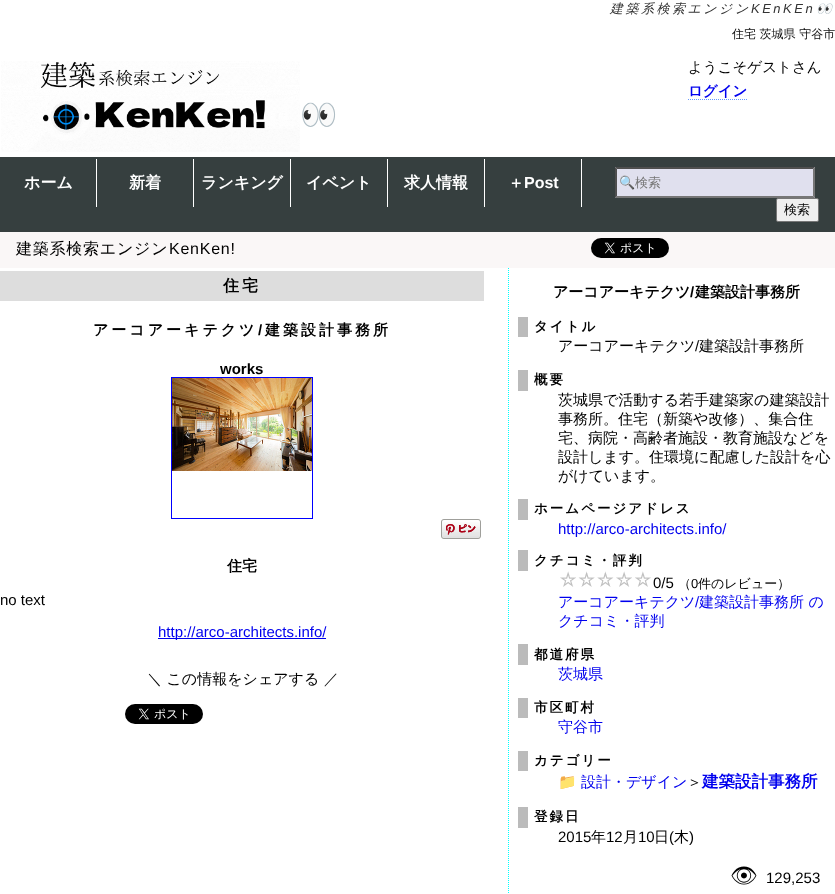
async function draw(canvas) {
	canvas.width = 835;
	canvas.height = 894;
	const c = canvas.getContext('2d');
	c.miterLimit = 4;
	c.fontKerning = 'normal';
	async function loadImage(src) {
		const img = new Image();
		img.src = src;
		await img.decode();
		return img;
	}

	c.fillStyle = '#fff';
	c.fillRect(0, 0, 835, 894);
	c.letterSpacing = '2.5px';
	c.font = 'italic 500 13px WenQuanYi Zen Hei';
	c.fillStyle = '#333';
	c.fillText('建築系検索エンジン', 610, 13);
	c.font = 'italic 13px Liberation Sans';
	c.fillText('KEnKEn', 751, 13);
	c.font = 'italic 13px Noto Color Emoji';
	c.fillText('👀', 816, 13);
	c.letterSpacing = '0px';
	c.font = '500 12px WenQuanYi Zen Hei';
	c.fillStyle = '#111';
	c.fillText('住宅 茨城県 守谷市', 732, 38);
	c.font = '500 14.5px WenQuanYi Zen Hei';
	c.fillStyle = '#000';
	c.fillText('ようこそゲストさん', 688, 72);
	c.font = 'bold 14.5px WenQuanYi Zen Hei';
	c.fillStyle = '#00e';
	c.fillText('ログイン', 688, 96);
	c.beginPath();
	c.moveTo(688, 99.5);
	c.lineTo(747, 99.5);
	c.strokeStyle = '#69f';
	c.setLineDash([1, 1]);
	c.stroke();
	c.drawImage(await loadImage('img1.png'), 1, 61, 299, 91);
	c.font = '30px Noto Color Emoji';
	c.fillText('👀', 300, 125);
	c.fillStyle = '#363f3f';
	c.fillRect(0, 157, 835, 75);
	c.fillStyle = '#fff';
	c.fillRect(96, 159, 1, 48);
	c.font = 'bold 16px WenQuanYi Zen Hei';
	c.fillText('ホーム', 24, 188);
	c.fillRect(193, 159, 1, 48);
	c.fillText('新着', 129, 188);
	c.fillRect(290, 159, 1, 48);
	c.fillText('ランキング', 201, 188);
	c.fillRect(387, 159, 1, 48);
	c.fillText('イベント', 306, 188);
	c.fillRect(484, 159, 1, 48);
	c.fillText('求人情報', 404, 188);
	c.fillRect(581, 159, 1, 48);
	c.fillText('＋', 508, 188);
	c.font = 'bold 16px Liberation Sans';
	c.fillText('Post', 524, 188);
	c.fillStyle = '#e0e0ee';
	c.fillRect(615, 167, 200, 31);
	c.fillStyle = '#4f4f4f';
	c.beginPath();
	c.moveTo(615, 167);
	c.lineTo(815, 167);
	c.lineTo(813, 169);
	c.lineTo(617, 169);
	c.closePath();
	c.fill();
	c.fillStyle = '#767676';
	c.beginPath();
	c.moveTo(815, 167);
	c.lineTo(815, 198);
	c.lineTo(813, 196);
	c.lineTo(813, 169);
	c.closePath();
	c.fill();
	c.beginPath();
	c.moveTo(815, 198);
	c.lineTo(615, 198);
	c.lineTo(617, 196);
	c.lineTo(813, 196);
	c.closePath();
	c.fill();
	c.fillStyle = '#4f4f4f';
	c.beginPath();
	c.moveTo(615, 198);
	c.lineTo(615, 167);
	c.lineTo(617, 169);
	c.lineTo(617, 196);
	c.closePath();
	c.fill();
	c.save();
	c.beginPath();
	c.rect(619, 174, 179, 18);
	c.clip();
	c.font = '13px Noto Color Emoji';
	c.fillStyle = '#757575';
	c.fillText('🔍', 619, 187);
	c.restore();
	c.font = '500 13px WenQuanYi Zen Hei';
	c.fillStyle = '#757575';
	c.fillText('検索', 635, 187);
	c.fillStyle = '#efefef';
	c.beginPath();
	c.roundRect(776.5, 198.5, 42, 23, 1.5);
	c.fill();
	c.strokeStyle = '#767676';
	c.setLineDash([]);
	c.stroke();
	c.fillStyle = '#000';
	c.fillText('検索', 784, 214);
	c.fillStyle = '#faf7f7';
	c.fillRect(0, 232, 835, 36);
	c.letterSpacing = '0.75px';
	c.font = '500 16px WenQuanYi Zen Hei';
	c.fillStyle = '#000';
	c.fillText('建築系検索エンジン', 16, 254);
	c.font = '16px Liberation Sans';
	c.fillText('KenKen!', 169, 254);
	c.drawImage(await loadImage('img2.png'), 591, 238, 78, 20);
	c.fillStyle = '#ddd';
	c.fillRect(0, 271, 484, 30);
	c.letterSpacing = '3px';
	c.font = 'bold 16px WenQuanYi Zen Hei';
	c.fillStyle = '#000';
	c.fillText('住宅', 223, 291);
	c.font = 'bold 15px WenQuanYi Zen Hei';
	c.fillText('アーコアーキテクツ', 93, 335);
	c.font = 'bold 15px Liberation Sans';
	c.fillText('/', 258, 335);
	c.font = 'bold 15px WenQuanYi Zen Hei';
	c.fillText('建築設計事務所', 265, 335);
	c.letterSpacing = '0px';
	c.font = 'bold 15px Liberation Sans';
	c.fillText('works', 220, 374);
	c.strokeStyle = '#00f';
	c.strokeRect(171.5, 377.5, 141, 141);
	c.drawImage(await loadImage('img3.png'), 172, 378, 140, 93);
	c.drawImage(await loadImage('img4.png'), 441, 519, 40, 20);
	c.font = 'bold 15px WenQuanYi Zen Hei';
	c.fillText('住宅', 227, 571);
	c.font = '15px Liberation Sans';
	c.fillText('no text', 0, 605);
	c.fillStyle = '#00e';
	c.fillRect(158, 638, 168, 1);
	c.fillText('http://arco-architects.info/', 158, 637);
	c.font = '500 15px WenQuanYi Zen Hei';
	c.fillStyle = '#000';
	c.fillText('＼ この情報をシェアする ／', 147, 684);
	c.drawImage(await loadImage('img5.png'), 125, 704, 78, 20);
	c.beginPath();
	c.moveTo(508.5, 268);
	c.lineTo(508.5, 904);
	c.strokeStyle = '#0ff';
	c.setLineDash([1, 1]);
	c.stroke();
	c.font = 'bold 15px WenQuanYi Zen Hei';
	c.fillText('アーコアーキテクツ', 553, 297);
	c.font = 'bold 15px Liberation Sans';
	c.fillText('/', 690, 297);
	c.font = 'bold 15px WenQuanYi Zen Hei';
	c.fillText('建築設計事務所', 695, 297);
	c.fillStyle = '#bbb';
	c.fillRect(518, 317, 10, 20);
	c.letterSpacing = '2px';
	c.font = 'bold 13.5px WenQuanYi Zen Hei';
	c.fillStyle = '#000';
	c.fillText('タイトル', 534, 331);
	c.letterSpacing = '0px';
	c.font = '500 15px WenQuanYi Zen Hei';
	c.fillText('アーコアーキテクツ', 558, 351);
	c.font = '15px Liberation Sans';
	c.fillText('/', 695, 351);
	c.font = '500 15px WenQuanYi Zen Hei';
	c.fillText('建築設計事務所', 699, 351);
	c.fillStyle = '#bbb';
	c.fillRect(518, 370, 10, 21);
	c.letterSpacing = '2px';
	c.font = 'bold 13.5px WenQuanYi Zen Hei';
	c.fillStyle = '#000';
	c.fillText('概要', 534, 384);
	c.letterSpacing = '0px';
	c.font = '500 15px WenQuanYi Zen Hei';
	for (const [text, x, y] of [
		['茨城県で活動する若手建築家の建築設計', 558, 405],
		['事務所。住宅（新築や改修）、集合住', 558, 424],
		['宅、病院・高齢者施設・教育施設などを', 558, 443],
		['設計します。住環境に配慮した設計を心', 558, 462],
		['がけています。', 558, 481],
	]) {
		c.fillText(text, x, y);
	}
	c.fillStyle = '#bbb';
	c.fillRect(518, 499, 10, 21);
	c.letterSpacing = '2px';
	c.font = 'bold 13.5px WenQuanYi Zen Hei';
	c.fillStyle = '#000';
	c.fillText('ホームページアドレス', 534, 513);
	c.letterSpacing = '0px';
	c.font = '15px Liberation Sans';
	c.fillStyle = '#00e';
	c.fillText('http://arco-architects.info/', 558, 534);
	c.fillStyle = '#bbb';
	c.fillRect(518, 550, 10, 21);
	c.letterSpacing = '2px';
	c.font = 'bold 13.5px WenQuanYi Zen Hei';
	c.fillStyle = '#000';
	c.fillText('クチコミ・評判', 534, 565);
	c.drawImage(await loadImage('img6.png'), 560, 571, 91, 16);
	c.letterSpacing = '0px';
	c.font = '15px Liberation Sans';
	c.fillText('0/5', 653, 588);
	c.font = '500 13px WenQuanYi Zen Hei';
	c.fillText('（', 678, 588);
	c.font = '13px Liberation Sans';
	c.fillText('0', 691, 588);
	c.font = '500 13px WenQuanYi Zen Hei';
	c.fillText('件のレビュー）', 698, 588);
	c.font = '500 15px WenQuanYi Zen Hei';
	c.fillStyle = '#00e';
	c.fillText('アーコアーキテクツ', 558, 607);
	c.font = '15px Liberation Sans';
	c.fillText('/', 695, 607);
	c.font = '500 15px WenQuanYi Zen Hei';
	c.fillText('建築設計事務所 の', 699, 607);
	c.fillText('クチコミ・評判', 558, 626);
	c.fillStyle = '#bbb';
	c.fillRect(518, 644, 10, 21);
	c.letterSpacing = '2px';
	c.font = 'bold 13.5px WenQuanYi Zen Hei';
	c.fillStyle = '#000';
	c.fillText('都道府県', 534, 659);
	c.letterSpacing = '0px';
	c.font = '500 15px WenQuanYi Zen Hei';
	c.fillStyle = '#00e';
	c.fillText('茨城県', 558, 679);
	c.fillStyle = '#bbb';
	c.fillRect(518, 698, 10, 20);
	c.letterSpacing = '2px';
	c.font = 'bold 13.5px WenQuanYi Zen Hei';
	c.fillStyle = '#000';
	c.fillText('市区町村', 534, 712);
	c.letterSpacing = '0px';
	c.font = '500 15px WenQuanYi Zen Hei';
	c.fillStyle = '#00e';
	c.fillText('守谷市', 558, 732);
	c.fillStyle = '#bbb';
	c.fillRect(518, 751, 10, 20);
	c.letterSpacing = '2px';
	c.font = 'bold 13.5px WenQuanYi Zen Hei';
	c.fillStyle = '#000';
	c.fillText('カテゴリー', 534, 765);
	c.letterSpacing = '0px';
	c.font = '15px Noto Color Emoji';
	c.fillText('📁', 558, 787);
	c.font = '500 15px WenQuanYi Zen Hei';
	c.fillStyle = '#00e';
	c.fillText('設計・デザイン', 581, 787);
	c.fillStyle = '#000';
	c.fillText('＞', 687, 787);
	c.font = 'bold 16.5px WenQuanYi Zen Hei';
	c.fillStyle = '#00e';
	c.fillText('建築設計事務所', 702, 787);
	c.fillStyle = '#bbb';
	c.fillRect(518, 807, 10, 21);
	c.letterSpacing = '2px';
	c.font = 'bold 13.5px WenQuanYi Zen Hei';
	c.fillStyle = '#000';
	c.fillText('登録日', 534, 821);
	c.letterSpacing = '0px';
	c.font = '15px Liberation Sans';
	c.fillText('2015', 558, 842);
	c.font = '500 15px WenQuanYi Zen Hei';
	c.fillText('年', 591, 842);
	c.font = '15px Liberation Sans';
	c.fillText('12', 606, 842);
	c.font = '500 15px WenQuanYi Zen Hei';
	c.fillText('月', 623, 842);
	c.font = '15px Liberation Sans';
	c.fillText('10', 638, 842);
	c.font = '500 15px WenQuanYi Zen Hei';
	c.fillText('日', 654, 842);
	c.font = '15px Liberation Sans';
	c.fillText('(', 669, 842);
	c.font = '500 15px WenQuanYi Zen Hei';
	c.fillText('木', 674, 842);
	c.font = '15px Liberation Sans';
	c.fillText(')', 689, 842);
	c.font = '22px Noto Emoji';
	c.fillText('👁', 730, 883);
	c.font = '15px Liberation Sans';
	c.fillText('129,253', 766, 883);
}

draw(document.querySelector('canvas'));
